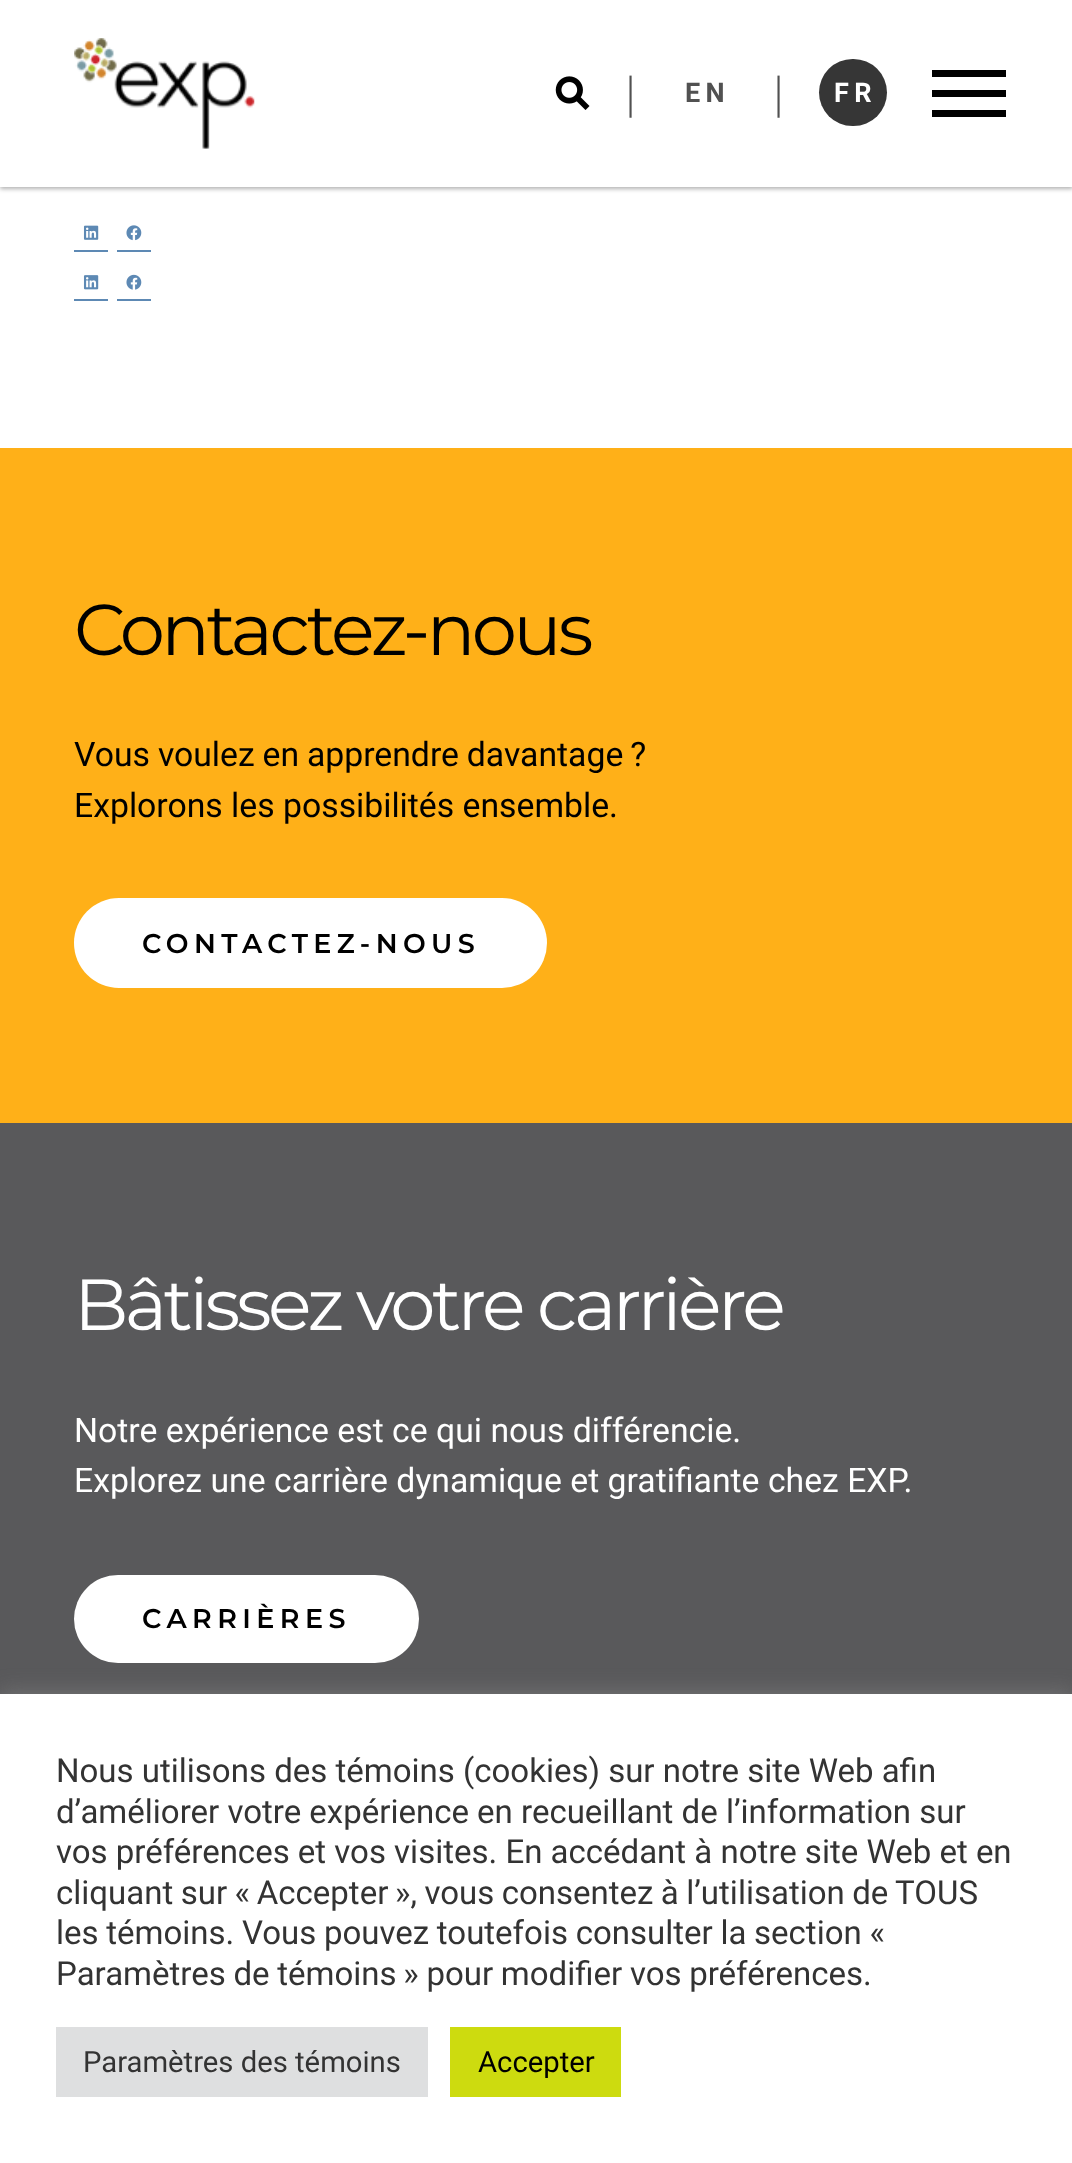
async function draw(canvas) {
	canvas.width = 1072;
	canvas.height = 2163;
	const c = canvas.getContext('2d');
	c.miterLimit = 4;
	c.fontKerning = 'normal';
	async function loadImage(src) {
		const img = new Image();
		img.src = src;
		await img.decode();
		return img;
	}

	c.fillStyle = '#fff';
	c.fillRect(0, 0, 1072, 2163);
	c.fillStyle = '#0000004d';
	c.filter = 'blur(2px)';
	c.beginPath();
	c.rect(0, 2, 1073, 187);
	c.fill();
	c.filter = 'none';
	c.fillStyle = '#fff';
	c.fillRect(0, 0, 1072, 187);
	c.drawImage(await loadImage('img1.png'), 74, 38, 181, 111);
	c.drawImage(await loadImage('img2.png'), 555, 76, 35, 34);
	c.font = '300 45px Montserrat';
	c.fillStyle = '#515151';
	c.fillText('|', 624, 109);
	c.letterSpacing = '5.4px';
	c.font = 'bold 27px Roboto';
	c.fillText('EN', 685, 102);
	c.letterSpacing = '0px';
	c.font = '300 45px Montserrat';
	c.fillText('|', 772, 109);
	c.fillStyle = '#363636';
	c.beginPath();
	c.roundRect(819, 59, 68, 67, 33.5);
	c.fill();
	c.letterSpacing = '5.4px';
	c.font = 'bold 27px Roboto';
	c.fillStyle = '#fff';
	c.fillText('FR', 834, 102);
	for (const [x, y, w, h, color] of [
		[932, 90, 74, 7, '#000'],
		[932, 70, 74, 7, '#000'],
		[932, 110, 74, 7, '#000'],
	]) {
		c.fillStyle = color;
		c.fillRect(x, y, w, h);
	}
	c.drawImage(await loadImage('img3.png'), 83, 225, 16, 15);
	c.drawImage(await loadImage('img4.png'), 126, 225, 16, 16);
	c.fillStyle = '#5d89b4';
	c.fillRect(74, 250, 34, 2);
	c.fillRect(117, 250, 34, 2);
	c.drawImage(await loadImage('img5.png'), 83, 275, 16, 15);
	c.drawImage(await loadImage('img6.png'), 126, 274, 16, 16);
	for (const [x, y, w, h, color] of [
		[74, 299, 34, 2, '#5d89b4'],
		[117, 299, 34, 2, '#5d89b4'],
		[0, 448, 1072, 675, '#ffb018'],
	]) {
		c.fillStyle = color;
		c.fillRect(x, y, w, h);
	}
	c.letterSpacing = '-3.6px';
	c.font = '72px Montserrat';
	c.fillStyle = '#000';
	c.fillText('Contactez-nous', 74, 655);
	c.letterSpacing = '0px';
	c.wordSpacing = '-0.5px';
	c.font = '33.75px Roboto';
	c.fillText('Vous voulez en apprendre davantage ?', 74, 766);
	c.wordSpacing = '0px';
	c.fillText('Explorons les possibilités ensemble.', 74, 817);
	c.fillStyle = '#fff';
	c.beginPath();
	c.roundRect(74, 898, 473, 90, 45);
	c.fill();
	c.letterSpacing = '5.4px';
	c.font = '600 27px Montserrat';
	c.fillStyle = '#000';
	c.fillText('CONTACTEZ-NOUS', 142, 953);
	c.fillStyle = '#59595b';
	c.fillRect(0, 1123, 1072, 571);
	c.letterSpacing = '-3.6px';
	c.font = '72px Montserrat';
	c.fillStyle = '#fff';
	c.fillText('Bâtissez votre carrière', 74, 1330);
	c.letterSpacing = '0px';
	c.font = '33.75px Roboto';
	c.fillText('Notre expérience est ce qui nous différencie.', 74, 1442);
	c.fillText('Explorez une carrière dynamique et gratifiante chez EXP.', 74, 1492);
	c.beginPath();
	c.roundRect(74, 1575, 345, 88, 44);
	c.fill();
	c.letterSpacing = '5.4px';
	c.font = '600 27px Montserrat';
	c.fillStyle = '#000';
	c.fillText('CARRIÈRES', 142, 1628);
	c.fillStyle = '#acabab4d';
	c.filter = 'blur(11px)';
	c.beginPath();
	c.rect(0, 1692, 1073, 470);
	c.fill();
	c.filter = 'none';
	c.fillStyle = '#fff';
	c.fillRect(0, 1694, 1072, 469);
	c.letterSpacing = '0px';
	c.font = '33px Roboto';
	c.fillStyle = '#333';
	for (const [text, x, y] of [
		['Nous utilisons des témoins (cookies) sur notre site Web afin', 56, 1782],
		['d’améliorer votre expérience en recueillant de l’information sur', 56, 1823],
		['vos préférences et vos visites. En accédant à notre site Web et en', 56, 1863],
	]) {
		c.fillText(text, x, y);
	}
	c.wordSpacing = '-0.75px';
	c.fillText('cliquant sur « Accepter », vous consentez à l’utilisation de TOUS', 56, 1904);
	c.wordSpacing = '-0.5px';
	c.fillText('les témoins. Vous pouvez toutefois consulter la section «', 56, 1944);
	c.fillText('Paramètres de témoins » pour modifier vos préférences.', 56, 1985);
	c.fillStyle = '#dedfe0';
	c.fillRect(56, 2027, 372, 70);
	c.wordSpacing = '0px';
	c.font = '29.25px Roboto';
	c.fillStyle = '#333';
	c.fillText('Paramètres des témoins', 83, 2072);
	c.fillStyle = '#cddb0f';
	c.fillRect(450, 2027, 171, 70);
	c.fillStyle = '#000';
	c.fillText('Accepter', 478, 2072);
}

draw(document.querySelector('canvas'));
